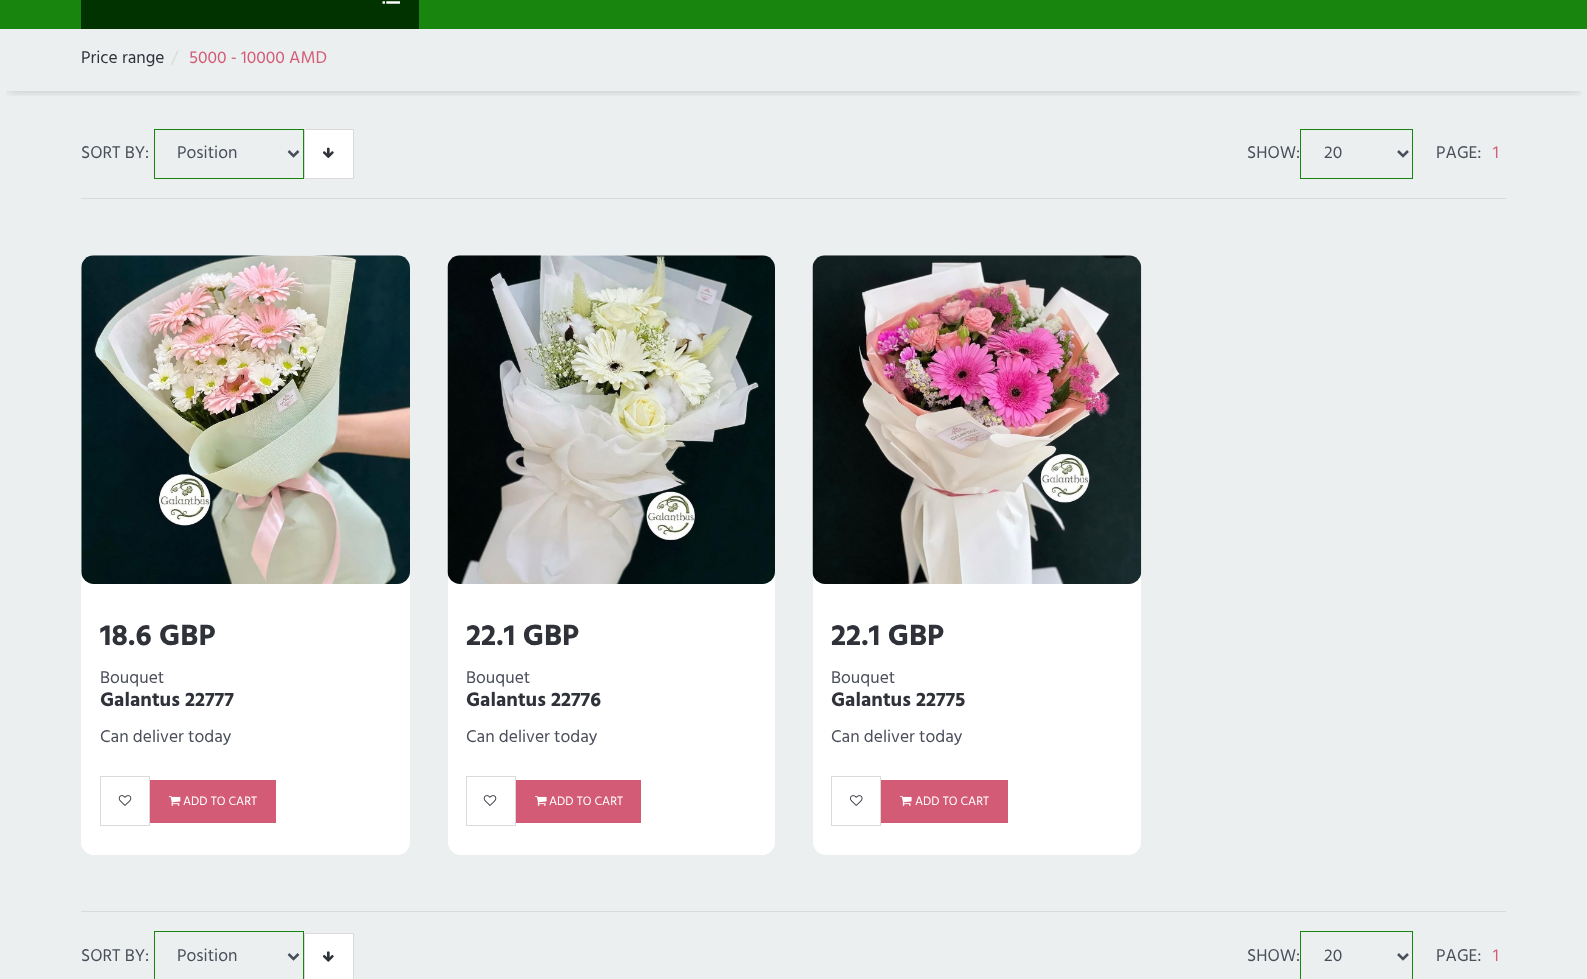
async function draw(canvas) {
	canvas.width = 1587;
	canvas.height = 979;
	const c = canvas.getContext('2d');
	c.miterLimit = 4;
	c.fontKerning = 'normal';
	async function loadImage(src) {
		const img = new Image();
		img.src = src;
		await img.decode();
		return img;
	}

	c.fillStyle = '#ebeff0';
	c.fillRect(0, 0, 1587, 979);
	c.fillStyle = '#18860e';
	c.fillRect(0, 0, 1587, 29);
	c.fillStyle = '#030';
	c.fillRect(81, 0, 338, 29);
	c.drawImage(await loadImage('img1.png'), 382, 1, 18, 3);
	c.save();
	c.beginPath();
	c.rect(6, 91, 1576, 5);
	c.clip();
	c.fillStyle = '#0000002e';
	c.filter = 'blur(4px)';
	c.beginPath();
	c.rect(8, 44, 1572, 47);
	c.fill();
	c.filter = 'none';
	c.restore();
	c.font = '17.5px Hind';
	c.fillStyle = '#30323a';
	c.fillText('Price range', 81, 63);
	c.fillStyle = '#dadada';
	c.fillText('/', 171, 63);
	c.fillStyle = '#d35b76';
	c.fillText('5000 - 10000 AMD', 189, 63);
	c.fillStyle = '#4a4e5a';
	c.fillText('SORT BY:', 81, 158);
	c.strokeStyle = '#18860e';
	c.strokeRect(154.5, 129.5, 149, 49);
	c.beginPath();
	c.moveTo(288.5, 151);
	c.lineTo(293.5, 156);
	c.lineTo(298.5, 151);
	c.strokeStyle = '#4a4e5a';
	c.lineWidth = 2.5;
	c.stroke();
	c.fillText('Position', 177, 158);
	c.fillStyle = '#fff';
	c.beginPath();
	c.rect(304.5, 129.5, 49, 49);
	c.fill();
	c.strokeStyle = '#dadada';
	c.lineWidth = 1;
	c.stroke();
	c.drawImage(await loadImage('img2.png'), 322, 147, 12, 11);
	c.fillStyle = '#4a4e5a';
	c.fillText('SHOW:', 1247, 158);
	c.strokeStyle = '#18860e';
	c.strokeRect(1300.5, 129.5, 112, 49);
	c.beginPath();
	c.moveTo(1398, 151);
	c.lineTo(1403, 156);
	c.lineTo(1408, 151);
	c.strokeStyle = '#4a4e5a';
	c.lineWidth = 2.5;
	c.stroke();
	c.fillText('20', 1324, 158);
	c.fillText('PAGE:', 1436, 158);
	c.fillStyle = '#d35b76';
	c.fillText('1', 1493, 158);
	c.fillStyle = '#dadada';
	c.fillRect(81, 198, 1425, 1);
	c.fillRect(81, 911, 1425, 1);
	c.fillStyle = '#fff';
	c.beginPath();
	c.roundRect(81, 255, 329, 600, 13);
	c.fill();
	c.drawImage(await loadImage('img3.png'), 81, 255, 329, 329);
	c.font = 'bold 30px Hind';
	c.fillStyle = '#30323a';
	c.fillText('18.6 GBP', 100, 645);
	c.font = '17.5px Hind';
	c.fillStyle = '#4a4e5a';
	c.fillText('Bouquet', 100, 683);
	c.font = 'bold 20px Hind';
	c.fillStyle = '#30323a';
	c.fillText('Galantus 22777', 100, 706);
	c.font = '17.5px Hind';
	c.fillStyle = '#4a4e5a';
	c.fillText('Can deliver today', 100, 742);
	c.strokeStyle = '#dadada';
	c.lineWidth = 1;
	c.strokeRect(100.5, 776.5, 49, 49);
	c.drawImage(await loadImage('img4.png'), 118, 795, 14, 11);
	c.fillStyle = '#d35b76';
	c.fillRect(150, 780, 126, 43);
	c.drawImage(await loadImage('img5.png'), 168, 796, 13, 10);
	c.font = '12.5px Hind';
	c.fillStyle = '#fff';
	c.fillText('ADD TO CART', 183, 805);
	c.beginPath();
	c.roundRect(448, 255, 327, 600, 13);
	c.fill();
	c.drawImage(await loadImage('img6.png'), 447, 255, 328, 329);
	c.font = 'bold 30px Hind';
	c.fillStyle = '#30323a';
	c.fillText('22.1 GBP', 466, 645);
	c.font = '17.5px Hind';
	c.fillStyle = '#4a4e5a';
	c.fillText('Bouquet', 466, 683);
	c.font = 'bold 20px Hind';
	c.fillStyle = '#30323a';
	c.fillText('Galantus 22776', 466, 706);
	c.font = '17.5px Hind';
	c.fillStyle = '#4a4e5a';
	c.fillText('Can deliver today', 466, 742);
	c.strokeRect(466.5, 776.5, 49, 49);
	c.drawImage(await loadImage('img4.png'), 483, 795, 14, 11);
	c.fillStyle = '#d35b76';
	c.fillRect(516, 780, 125, 43);
	c.drawImage(await loadImage('img7.png'), 535, 796, 12, 10);
	c.font = '12.5px Hind';
	c.fillStyle = '#fff';
	c.fillText('ADD TO CART', 549, 805);
	c.beginPath();
	c.roundRect(813, 255, 328, 600, 13);
	c.fill();
	c.drawImage(await loadImage('img8.png'), 812, 255, 330, 329);
	c.font = 'bold 30px Hind';
	c.fillStyle = '#30323a';
	c.fillText('22.1 GBP', 831, 645);
	c.font = '17.5px Hind';
	c.fillStyle = '#4a4e5a';
	c.fillText('Bouquet', 831, 683);
	c.font = 'bold 20px Hind';
	c.fillStyle = '#30323a';
	c.fillText('Galantus 22775', 831, 706);
	c.font = '17.5px Hind';
	c.fillStyle = '#4a4e5a';
	c.fillText('Can deliver today', 831, 742);
	c.strokeRect(831.5, 776.5, 49, 49);
	c.drawImage(await loadImage('img9.png'), 850, 795, 13, 11);
	c.fillStyle = '#d35b76';
	c.fillRect(881, 780, 127, 43);
	c.drawImage(await loadImage('img7.png'), 900, 796, 12, 10);
	c.font = '12.5px Hind';
	c.fillStyle = '#fff';
	c.fillText('ADD TO CART', 915, 805);
	c.font = '17.5px Hind';
	c.fillStyle = '#4a4e5a';
	c.fillText('SORT BY:', 81, 961);
	c.strokeStyle = '#18860e';
	c.strokeRect(154.5, 931.5, 149, 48);
	c.beginPath();
	c.moveTo(288.5, 954);
	c.lineTo(293.5, 959);
	c.lineTo(298.5, 954);
	c.strokeStyle = '#4a4e5a';
	c.lineWidth = 2.5;
	c.stroke();
	c.fillText('Position', 177, 961);
	c.fillStyle = '#fff';
	c.beginPath();
	c.rect(304.5, 933.5, 49, 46);
	c.fill();
	c.strokeStyle = '#dadada';
	c.lineWidth = 1;
	c.stroke();
	c.drawImage(await loadImage('img10.png'), 322, 951, 12, 11);
	c.fillStyle = '#4a4e5a';
	c.fillText('SHOW:', 1247, 961);
	c.strokeStyle = '#18860e';
	c.strokeRect(1300.5, 931.5, 112, 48);
	c.beginPath();
	c.moveTo(1398, 954);
	c.lineTo(1403, 959);
	c.lineTo(1408, 954);
	c.strokeStyle = '#4a4e5a';
	c.lineWidth = 2.5;
	c.stroke();
	c.fillText('20', 1324, 961);
	c.fillText('PAGE:', 1436, 961);
	c.fillStyle = '#d35b76';
	c.fillText('1', 1493, 961);
}

draw(document.querySelector('canvas'));
